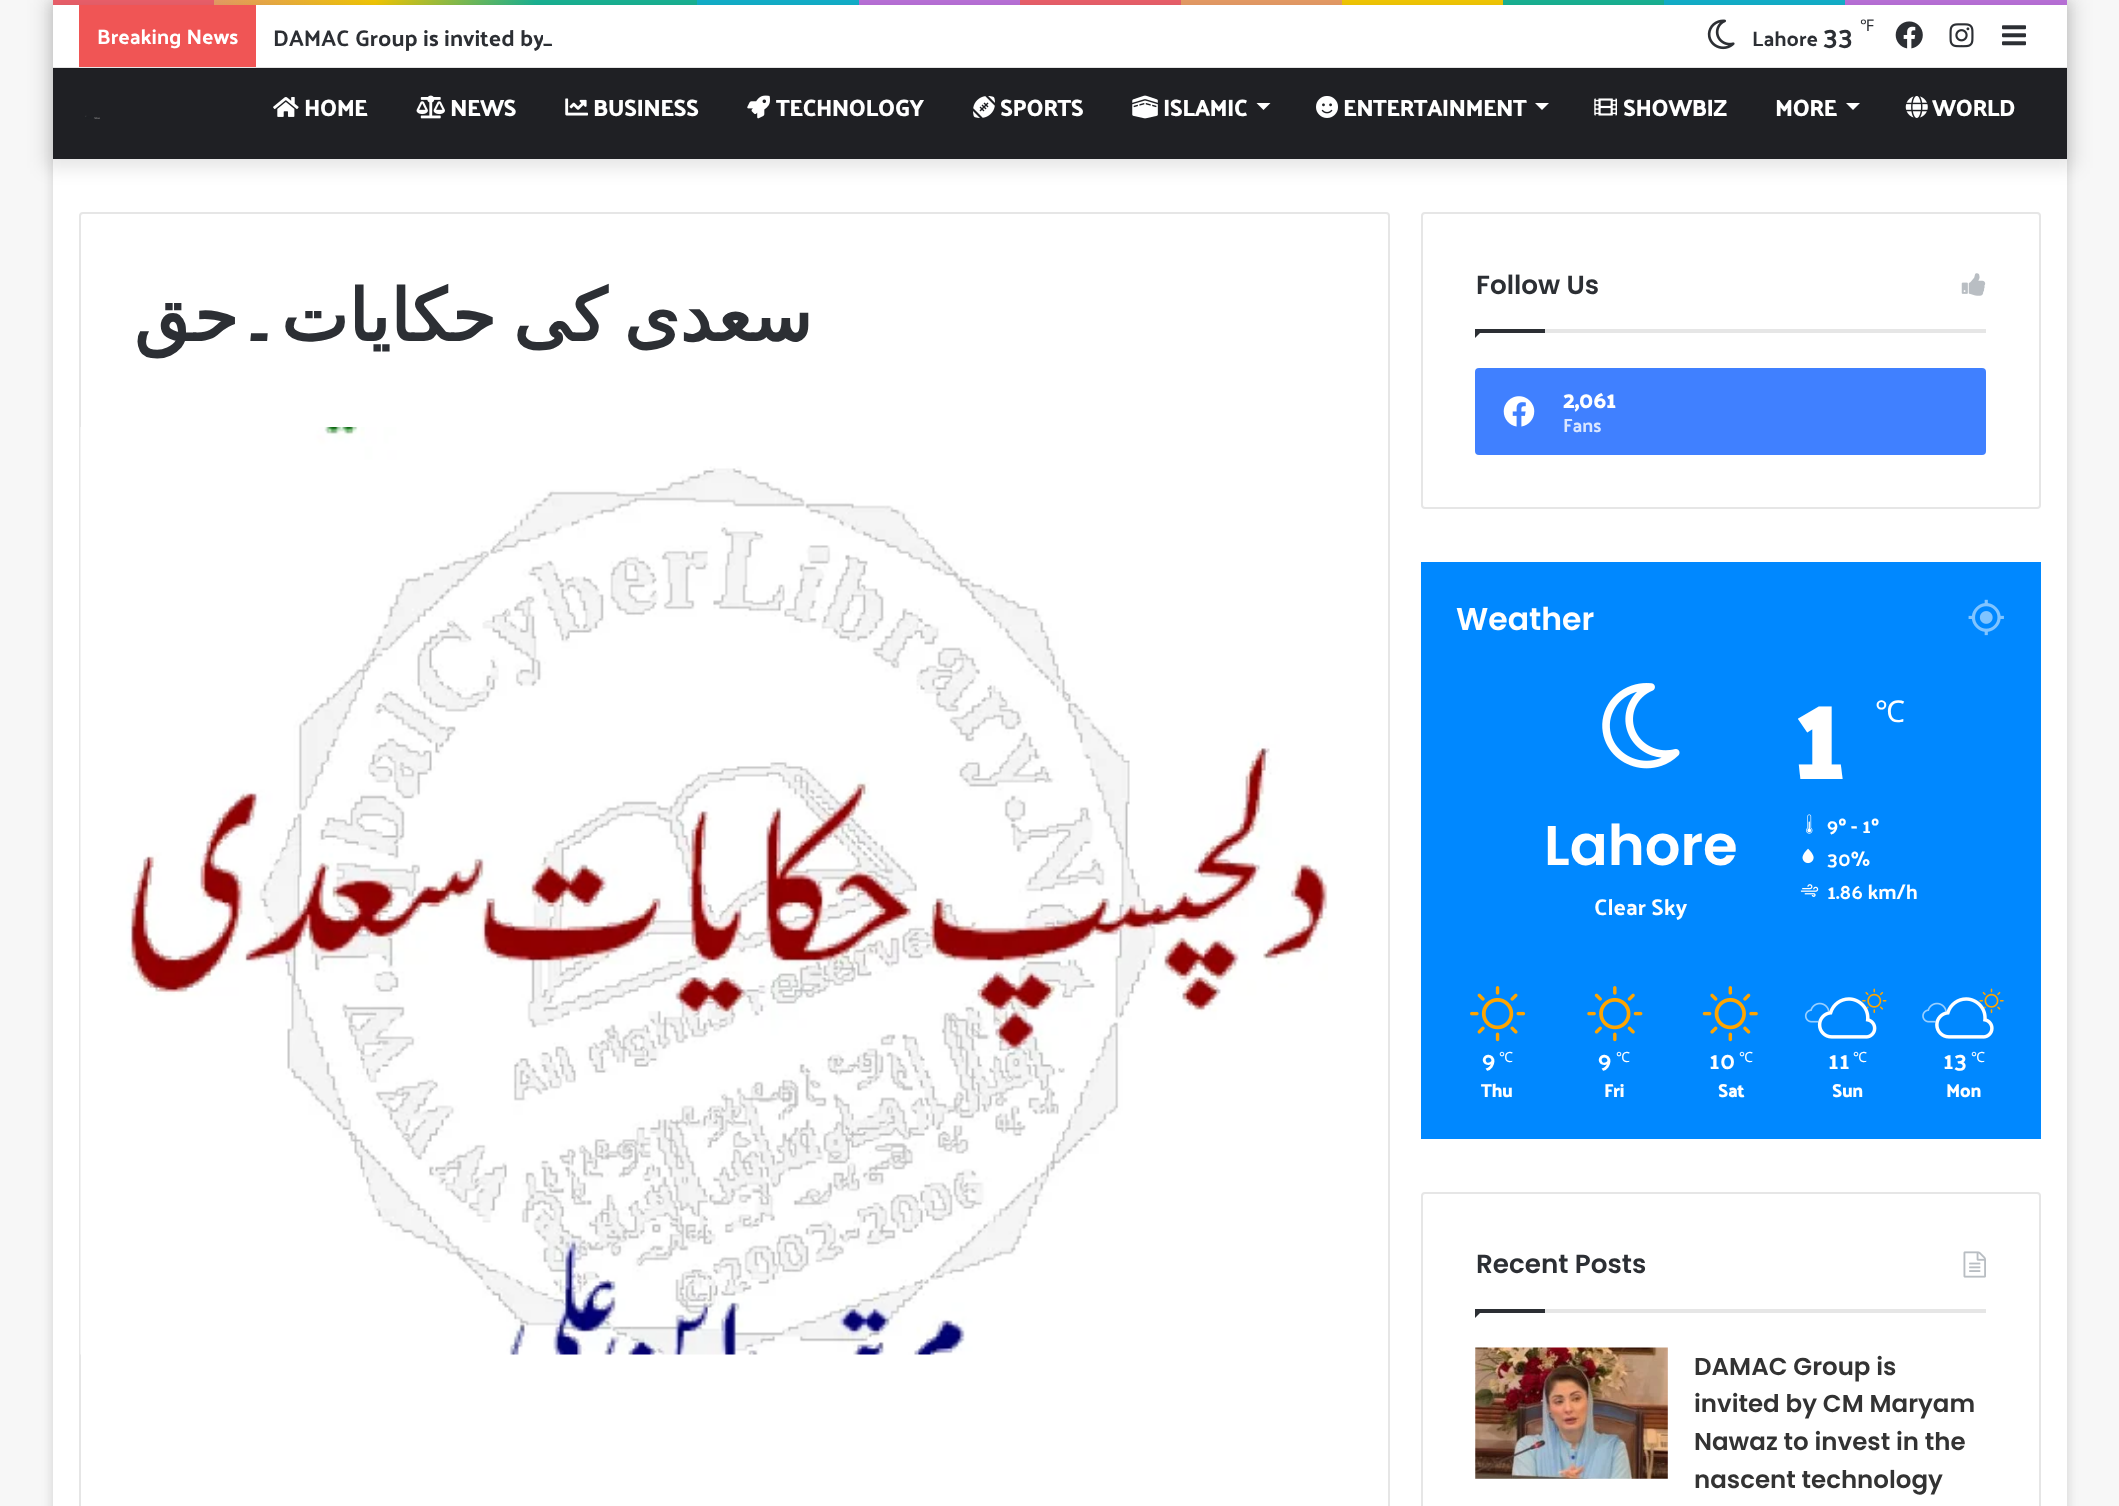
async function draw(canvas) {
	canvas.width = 2119;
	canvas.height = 1506;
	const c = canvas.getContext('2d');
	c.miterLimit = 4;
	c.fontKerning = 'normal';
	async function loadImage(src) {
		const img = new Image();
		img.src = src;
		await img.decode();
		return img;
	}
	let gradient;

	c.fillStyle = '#f7f7f7';
	c.fillRect(0, 0, 2119, 1506);
	c.fillStyle = '#ababab80';
	c.filter = 'blur(6px)';
	c.beginPath();
	c.rect(53, 2, 2014, 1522);
	c.fill();
	c.filter = 'none';
	c.fillStyle = '#fff';
	c.fillRect(53, 159, 2014, 1347);
	gradient = c.createLinearGradient(53, 2.6, 2067, 2.6);
	gradient.addColorStop(0, '#f76570');
	gradient.addColorStop(0.08, '#f76570');
	gradient.addColorStop(0.08, '#f3a46b');
	gradient.addColorStop(0.16, '#ffd205');
	gradient.addColorStop(0.24, '#1bbc9b');
	gradient.addColorStop(0.32, '#1bbc9b');
	gradient.addColorStop(0.32, '#14b9d5');
	gradient.addColorStop(0.4, '#14b9d5');
	gradient.addColorStop(0.4, '#c377e4');
	gradient.addColorStop(0.48, '#c377e4');
	gradient.addColorStop(0.48, '#f76570');
	gradient.addColorStop(0.56, '#f76570');
	gradient.addColorStop(0.56, '#f3a46b');
	gradient.addColorStop(0.64, '#f3a46b');
	gradient.addColorStop(0.64, '#ffd205');
	gradient.addColorStop(0.72, '#ffd205');
	gradient.addColorStop(0.72, '#1bbc9b');
	gradient.addColorStop(0.8, '#1bbc9b');
	gradient.addColorStop(0.8, '#14b9d5');
	gradient.addColorStop(0.89, '#14b9d5');
	gradient.addColorStop(0.89, '#c377e4');
	gradient.addColorStop(1, '#c377e4');
	c.fillStyle = gradient;
	c.fillRect(53, 0, 2014, 5);
	c.fillStyle = '#0000001a';
	c.filter = 'blur(9px)';
	c.beginPath();
	c.rect(44, -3, 2032, 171);
	c.fill();
	c.filter = 'none';
	for (const [x, y, w, h, color] of [
		[53, 5, 2014, 63, '#fff'],
		[53, 68, 2014, 91, '#1f2024'],
		[53, 67, 2014, 2, '#0000001a'],
		[79, 5, 177, 62, '#f05555'],
	]) {
		c.fillStyle = color;
		c.fillRect(x, y, w, h);
	}
	c.font = '21px Palanquin Dark';
	c.fillStyle = '#fff';
	c.fillText('Breaking News', 97, 44);
	c.font = '22.75px Palanquin Dark';
	c.fillStyle = '#2c2f34';
	c.fillText('DAMAC Group is invited by', 273, 46);
	c.fillStyle = '#fff';
	c.fillRect(543, 34, 2, 5);
	c.fillStyle = '#2c2f34';
	c.fillText('_', 543, 46);
	c.drawImage(await loadImage('img1.png'), 1707, 19, 28, 31);
	c.font = '16px Noto Sans';
	c.fillText('℉', 1860, 31);
	c.font = '21px Palanquin Dark';
	c.fillText('Lahore', 1752, 46);
	c.font = '28px Palanquin Dark';
	c.fillText('33', 1823, 46);
	c.drawImage(await loadImage('img2.png'), 1895, 21, 28, 28);
	c.drawImage(await loadImage('img3.png'), 1949, 23, 25, 25);
	c.drawImage(await loadImage('img4.png'), 2002, 25, 24, 21);
	c.drawImage(await loadImage('img5.png'), 85, 115, 15, 4);
	c.drawImage(await loadImage('img6.png'), 273, 97, 26, 20);
	c.font = 'bold 22.75px Palanquin Dark';
	c.fillStyle = '#fff';
	c.fillText('HOME', 304, 116);
	c.drawImage(await loadImage('img7.png'), 416, 95, 29, 24);
	c.fillText('NEWS', 450, 116);
	c.drawImage(await loadImage('img8.png'), 565, 98, 23, 18);
	c.fillText('BUSINESS', 593, 116);
	c.drawImage(await loadImage('img9.png'), 747, 95, 23, 24);
	c.fillText('TECHNOLOGY', 776, 116);
	c.drawImage(await loadImage('img10.png'), 973, 96, 22, 22);
	c.fillText('SPORTS', 1000, 116);
	c.drawImage(await loadImage('img11.png'), 1132, 95, 26, 24);
	c.fillText('ISLAMIC', 1163, 116);
	c.beginPath();
	c.moveTo(1256.5, 103);
	c.lineTo(1270.5, 103);
	c.lineTo(1263.5, 110);
	c.closePath();
	c.fill();
	c.drawImage(await loadImage('img12.png'), 1316, 96, 22, 22);
	c.fillText('ENTERTAINMENT', 1343, 116);
	c.beginPath();
	c.moveTo(1535, 103);
	c.lineTo(1549, 103);
	c.lineTo(1542, 110);
	c.closePath();
	c.fill();
	c.drawImage(await loadImage('img13.png'), 1594, 98, 23, 18);
	c.fillText('SHOWBIZ', 1623, 116);
	c.fillText('MORE', 1775, 116);
	c.beginPath();
	c.moveTo(1846, 103);
	c.lineTo(1860, 103);
	c.lineTo(1853, 110);
	c.closePath();
	c.fill();
	c.drawImage(await loadImage('img14.png'), 1905, 96, 23, 22);
	c.fillText('WORLD', 1932, 116);
	c.beginPath();
	c.roundRect(80, 213, 1309, 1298, 3);
	c.strokeStyle = '#e6e6e6';
	c.lineWidth = 2;
	c.stroke();
	c.direction = 'rtl';
	c.font = 'bold 71.75px DejaVu Sans';
	c.fillStyle = '#2c2f34';
	c.fillText('حق', 238, 341);
	c.font = 'bold 71.75px Cascadia Code';
	c.fillText('۔', 280, 341);
	c.wordSpacing = '-6px';
	c.font = 'bold 71.75px DejaVu Sans';
	c.fillText('سعدی کی حکایات', 812, 341);
	c.drawImage(await loadImage('img15.png'), 80, 427, 1248, 928);
	c.beginPath();
	c.roundRect(1422, 213, 618, 295, 3);
	c.stroke();
	c.fillStyle = '#e6e6e6';
	c.fillRect(1545, 329, 441, 4);
	c.wordSpacing = '0px';
	c.direction = 'ltr';
	c.font = '600 26.25px Poppins';
	c.fillStyle = '#2c2f34';
	c.fillText('Follow Us', 1476, 294);
	c.drawImage(await loadImage('img16.png'), 1961, 273, 25, 23);
	c.beginPath();
	c.moveTo(1475, 329);
	c.lineTo(1484, 329);
	c.lineTo(1475, 338);
	c.closePath();
	c.fill();
	c.fillRect(1475, 329, 70, 4);
	c.fillStyle = '#4080ff';
	c.beginPath();
	c.roundRect(1475, 368, 511, 87, 4);
	c.fill();
	c.drawImage(await loadImage('img17.png'), 1503, 396, 32, 31);
	c.font = 'bold 22.75px Palanquin Dark';
	c.fillStyle = '#fff';
	c.fillText('2,061', 1563, 408);
	c.font = '19px Palanquin Dark';
	c.fillStyle = '#d9e6ff';
	c.fillText('Fans', 1563, 432);
	c.fillStyle = '#08f';
	c.fillRect(1421, 562, 620, 577);
	c.font = '600 31.5px Poppins';
	c.fillStyle = '#fff';
	c.fillText('Weather', 1456, 630);
	c.drawImage(await loadImage('img18.png'), 1968, 599, 36, 37);
	c.drawImage(await loadImage('img19.png'), 1602, 683, 78, 86);
	c.font = '600 56px Poppins';
	c.fillText('Lahore', 1544, 865);
	c.font = '22.75px Palanquin Dark';
	c.fillText('Clear Sky', 1594, 915);
	c.font = 'bold 122px Palanquin Dark';
	c.fillText('1', 1791, 779);
	c.font = '30px Noto Sans';
	c.fillText('℃', 1875, 722);
	c.drawImage(await loadImage('img20.png'), 1806, 814, 7, 20);
	c.font = '20.5px Palanquin Dark';
	c.fillText('9º - 1º', 1827, 833);
	c.drawImage(await loadImage('img21.png'), 1802, 848, 12, 16);
	c.fillText('30%', 1827, 866);
	c.drawImage(await loadImage('img22.png'), 1800, 884, 19, 13);
	c.fillText('1.86 km/h', 1827, 899);
	c.drawImage(await loadImage('img23.png'), 1470, 986, 56, 56);
	c.font = '24.5px Palanquin Dark';
	c.fillText('9', 1482, 1069);
	c.font = '14px Noto Sans';
	c.fillText('℃', 1499, 1062);
	c.font = 'bold 18px Palanquin Dark';
	c.fillText('Thu', 1481, 1097);
	c.drawImage(await loadImage('img24.png'), 1587, 986, 56, 56);
	c.font = '24.5px Palanquin Dark';
	c.fillText('9', 1598, 1069);
	c.font = '14px Noto Sans';
	c.fillText('℃', 1616, 1062);
	c.font = 'bold 18px Palanquin Dark';
	c.fillText('Fri', 1604, 1097);
	c.drawImage(await loadImage('img25.png'), 1702, 986, 56, 56);
	c.font = '24.5px Palanquin Dark';
	c.fillText('10', 1709, 1069);
	c.font = '14px Noto Sans';
	c.fillText('℃', 1739, 1062);
	c.font = 'bold 18px Palanquin Dark';
	c.fillText('Sat', 1718, 1097);
	c.drawImage(await loadImage('img26.png'), 1862, 988, 25, 25);
	c.drawImage(await loadImage('img28.png'), 1804, 1002, 26, 21);
	c.drawImage(await loadImage('img29.png'), 1818, 1007, 50, 16);
	c.drawImage(await loadImage('img27.png'), 1817, 997, 60, 42);
	c.font = '24.5px Palanquin Dark';
	c.fillText('11', 1828, 1069);
	c.font = '14px Noto Sans';
	c.fillText('℃', 1853, 1062);
	c.font = 'bold 18px Palanquin Dark';
	c.fillText('Sun', 1832, 1097);
	c.drawImage(await loadImage('img30.png'), 1979, 988, 25, 25);
	c.drawImage(await loadImage('img31.png'), 1922, 1002, 25, 21);
	c.drawImage(await loadImage('img33.png'), 1935, 1007, 50, 16);
	c.drawImage(await loadImage('img32.png'), 1935, 997, 59, 42);
	c.font = '24.5px Palanquin Dark';
	c.fillText('13', 1943, 1069);
	c.font = '14px Noto Sans';
	c.fillText('℃', 1971, 1062);
	c.font = 'bold 18px Palanquin Dark';
	c.fillText('Mon', 1946, 1097);
	c.beginPath();
	c.roundRect(1422, 1193, 618, 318, 3);
	c.stroke();
	c.fillStyle = '#e6e6e6';
	c.fillRect(1545, 1309, 441, 4);
	c.font = '600 26.25px Poppins';
	c.fillStyle = '#2c2f34';
	c.fillText('Recent Posts', 1476, 1273);
	c.drawImage(await loadImage('img34.png'), 1963, 1251, 23, 27);
	c.beginPath();
	c.moveTo(1475, 1309);
	c.lineTo(1484, 1309);
	c.lineTo(1475, 1318);
	c.closePath();
	c.fill();
	c.fillRect(1475, 1309, 70, 4);
	c.drawImage(await loadImage('img35.png'), 1475, 1347, 193, 132);
	c.font = '600 24.5px Poppins';
	c.fillStyle = '#333';
	for (const [text, x, y] of [
		['DAMAC Group is', 1694, 1375],
		['invited by CM Maryam', 1694, 1412],
		['Nawaz to invest in the', 1694, 1450],
		['nascent technology', 1694, 1488],
	]) {
		c.fillText(text, x, y);
	}
}

draw(document.querySelector('canvas'));
